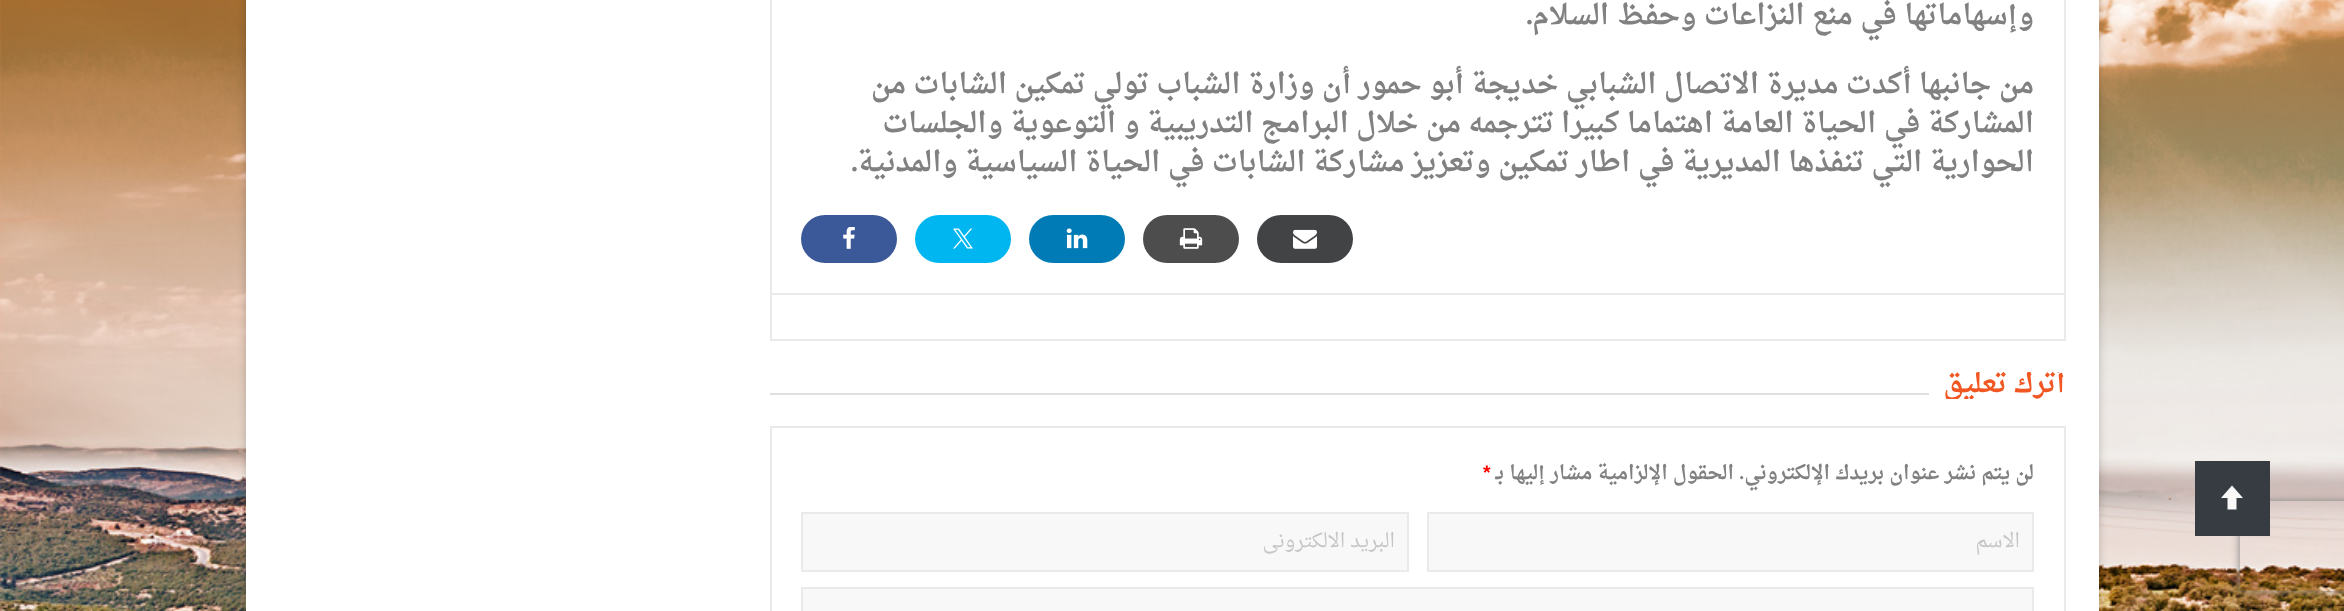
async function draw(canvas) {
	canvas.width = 2344;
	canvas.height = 611;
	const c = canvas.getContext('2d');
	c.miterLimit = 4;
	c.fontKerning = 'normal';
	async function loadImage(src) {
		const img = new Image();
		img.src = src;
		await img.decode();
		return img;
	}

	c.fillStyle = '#fff';
	c.fillRect(0, 0, 2344, 611);
	c.drawImage(await loadImage('img1.png'), 0, 0, 2344, 611);
	c.save();
	c.beginPath();
	c.moveTo(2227, 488);
	c.lineTo(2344, 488);
	c.lineTo(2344, 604);
	c.lineTo(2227, 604);
	c.closePath();
	c.moveTo(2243, 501);
	c.lineTo(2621, 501);
	c.bezierCurveTo(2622.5, 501, 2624, 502.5, 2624, 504);
	c.lineTo(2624, 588);
	c.bezierCurveTo(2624, 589.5, 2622.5, 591, 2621, 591);
	c.lineTo(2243, 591);
	c.bezierCurveTo(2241.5, 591, 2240, 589.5, 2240, 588);
	c.lineTo(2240, 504);
	c.bezierCurveTo(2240, 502.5, 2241.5, 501, 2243, 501);
	c.closePath();
	c.clip('evenodd');
	c.fillStyle = '#808080';
	c.filter = 'blur(4px)';
	c.beginPath();
	c.roundRect(2240, 501, 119, 90, 3);
	c.fill();
	c.filter = 'none';
	c.restore();
	c.fillStyle = '#373c43';
	c.fillRect(2195, 461, 75, 75);
	c.fillStyle = '#f8f8f8';
	c.beginPath();
	c.moveTo(2243, 498);
	c.lineTo(2236.5, 498);
	c.lineTo(2236.5, 509.5);
	c.lineTo(2227.5, 509.5);
	c.lineTo(2227.5, 498);
	c.lineTo(2221, 498);
	c.lineTo(2232, 485.5);
	c.closePath();
	c.fill();
	c.fillStyle = '#00000033';
	c.filter = 'blur(4px)';
	c.beginPath();
	c.rect(246, -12, 1853, 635);
	c.fill();
	c.filter = 'none';
	c.fillStyle = '#fff';
	c.fillRect(246, 0, 1853, 611);
	c.strokeStyle = '#eaeaea';
	c.lineWidth = 2;
	c.strokeRect(771, -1, 1294, 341);
	c.direction = 'rtl';
	c.font = 'bold 28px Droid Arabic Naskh';
	c.fillStyle = '#818181';
	c.fillText('وإسهاماتها في منع النزاعات وحفظ السلام', 2034, 24);
	c.font = 'bold 28px Liberation Serif';
	c.fillText('.', 1533, 24);
	c.font = 'bold 28px Droid Arabic Naskh';
	for (const [text, x, y] of [
		['من جانبها أكدت مديرة الاتصال الشبابي خديجة أبو حمور أن وزارة الشباب تولي تمكين الشابات من', 2034, 93],
		['المشاركة في الحياة العامة اهتماما كبيرا تترجمه من خلال البرامج التدريبية و التوعوية والجلسات', 2034, 132],
		['الحوارية التي تنفذها المديرية في اطار تمكين وتعزيز مشاركة الشابات في الحياة السياسية والمدنية', 2034, 171],
	]) {
		c.fillText(text, x, y);
	}
	c.font = 'bold 28px Liberation Serif';
	c.fillText('.', 858, 171);
	c.fillStyle = '#424345';
	c.beginPath();
	c.roundRect(1257, 215, 96, 48, 24);
	c.fill();
	c.drawImage(await loadImage('img2.png'), 1293, 229, 24, 20);
	c.fillStyle = '#4d4d4d';
	c.beginPath();
	c.roundRect(1143, 215, 96, 48, 24);
	c.fill();
	c.drawImage(await loadImage('img3.png'), 1179, 228, 24, 21);
	c.fillStyle = '#007bb6';
	c.beginPath();
	c.roundRect(1029, 215, 96, 48, 24);
	c.fill();
	c.drawImage(await loadImage('img4.png'), 1066, 228, 22, 21);
	c.fillStyle = '#00b6f1';
	c.beginPath();
	c.roundRect(915, 215, 96, 48, 24);
	c.fill();
	c.drawImage(await loadImage('img5.png'), 953, 228, 20, 21);
	c.fillStyle = '#3b5998';
	c.beginPath();
	c.roundRect(801, 215, 96, 48, 24);
	c.fill();
	c.drawImage(await loadImage('img6.png'), 843, 227, 12, 22);
	c.fillStyle = '#eaeaea';
	c.fillRect(771, 293, 1293, 2);
	c.save();
	c.beginPath();
	c.rect(770, 372, 1296, 27);
	c.clip();
	c.font = 'bold 27px Droid Arabic Naskh';
	c.fillStyle = '#f15723';
	c.fillText('أترك تعليق', 2065, 392);
	c.restore();
	c.fillStyle = '#e0e0e0';
	c.fillRect(770, 393, 1159, 2);
	c.strokeRect(771, 427, 1294, 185);
	c.font = 'bold 19.5px Droid Arabic Naskh';
	c.fillStyle = '#818181';
	c.fillText('لن يتم نشر عنوان بريدك الإلكتروني', 2034, 479);
	c.fillText('الحقول الإلزامية مشار إليها بـ', 1734, 479);
	c.direction = 'ltr';
	c.font = 'bold 19.5px Liberation Sans';
	c.fillStyle = '#f00';
	c.fillText('*', 1483, 479);
	c.direction = 'rtl';
	c.font = 'bold 19.5px Liberation Serif';
	c.fillStyle = '#818181';
	c.fillText('.', 1744, 479);
	c.fillStyle = '#f8f8f8';
	c.beginPath();
	c.rect(1428, 513, 605, 58);
	c.fill();
	c.stroke();
	c.font = '19.5px Droid Arabic Naskh';
	c.fillStyle = '#c6c6c6';
	c.fillText('الاسم', 2020, 547);
	c.fillStyle = '#f8f8f8';
	c.beginPath();
	c.rect(802, 513, 606, 58);
	c.fill();
	c.stroke();
	c.fillStyle = '#c6c6c6';
	c.fillText('البريد الالكترونى', 1395, 547);
	c.fillStyle = '#f8f8f8';
	c.beginPath();
	c.rect(802, 588, 1231, 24);
	c.fill();
	c.stroke();
}

draw(document.querySelector('canvas'));
